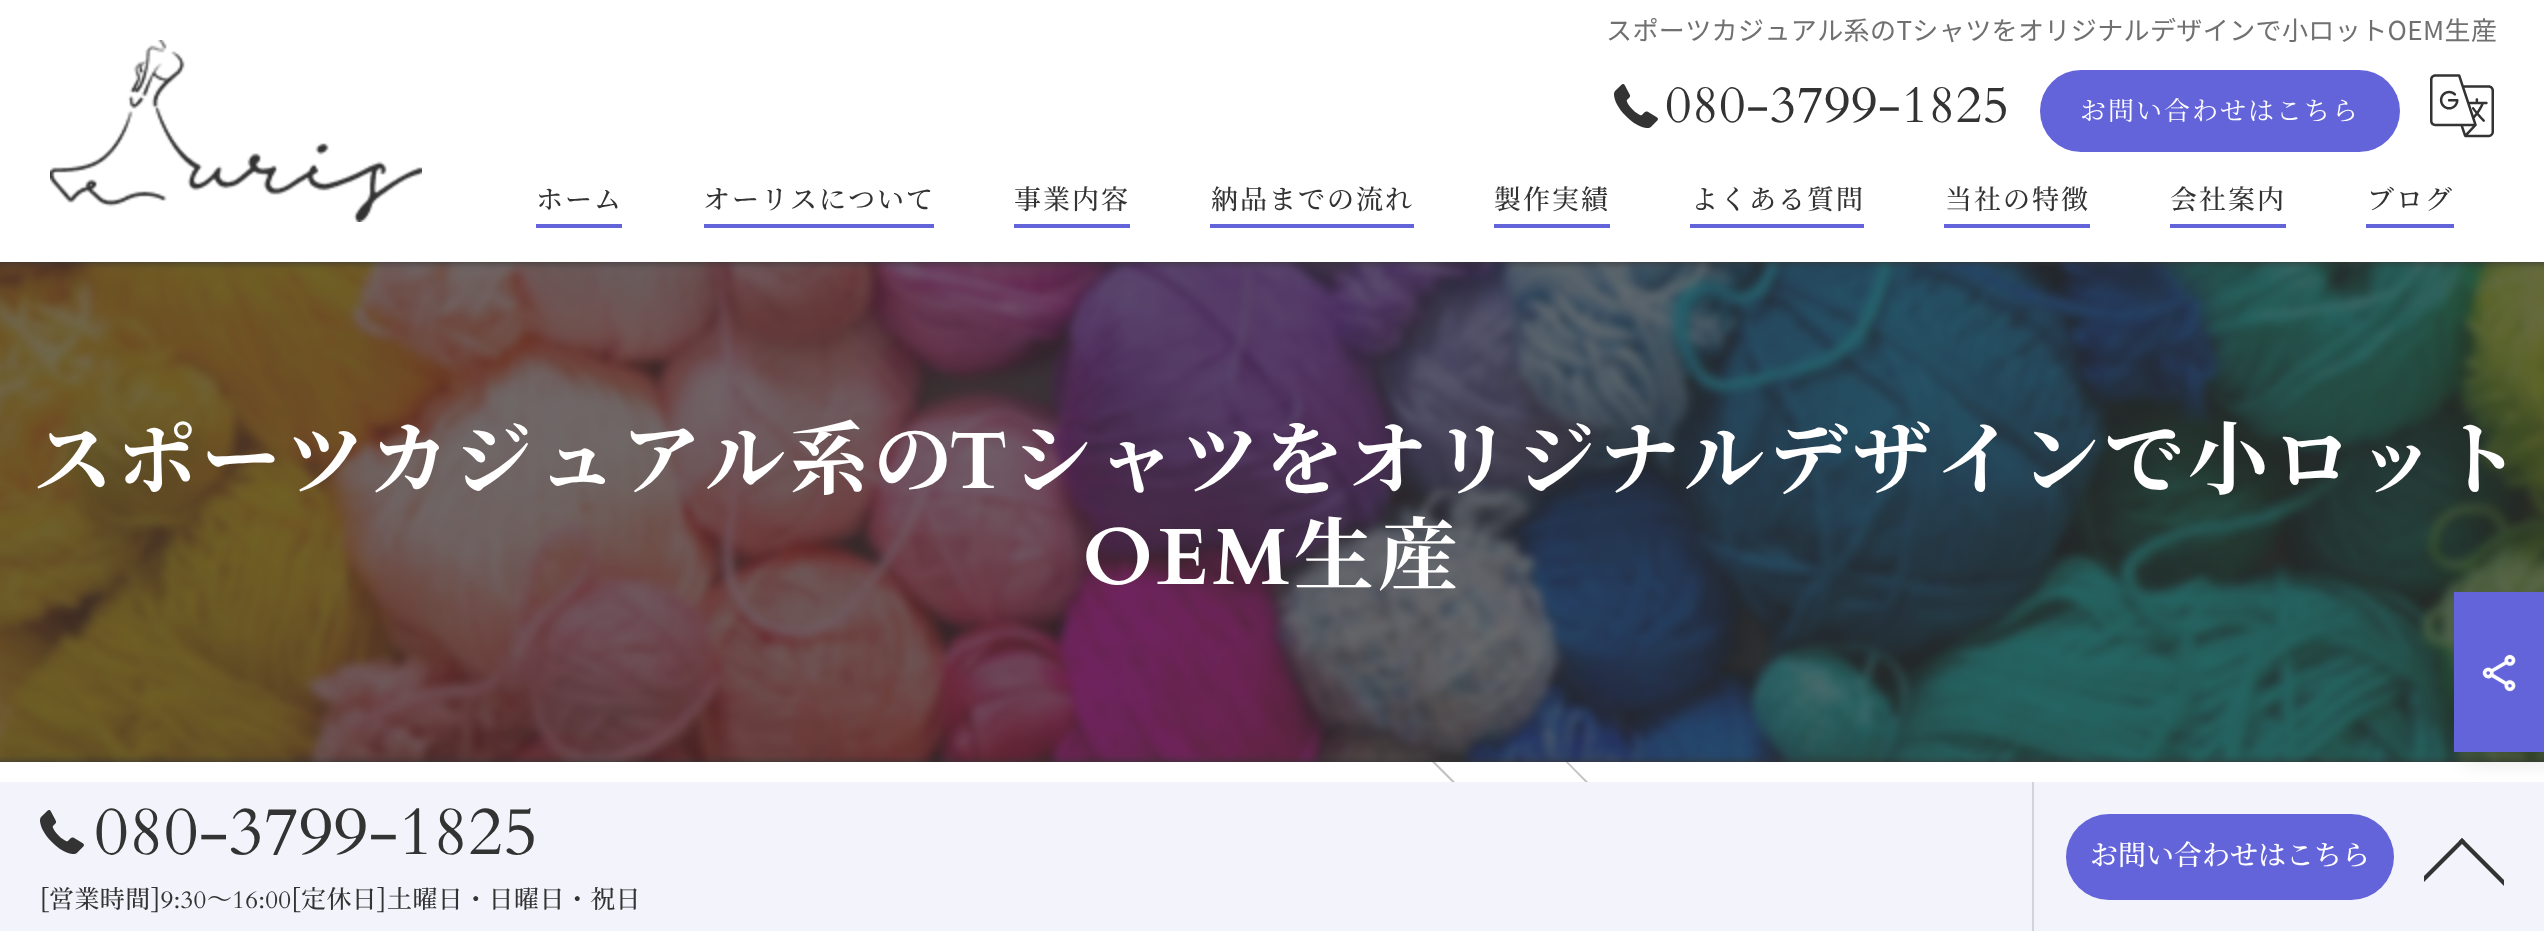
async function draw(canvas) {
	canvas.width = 2544;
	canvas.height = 931;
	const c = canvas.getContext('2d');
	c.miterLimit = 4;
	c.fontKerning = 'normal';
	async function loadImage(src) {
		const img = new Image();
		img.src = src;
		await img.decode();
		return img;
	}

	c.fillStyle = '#fff';
	c.fillRect(0, 0, 2544, 931);
	c.letterSpacing = '0.4px';
	c.font = '26px Noto Sans JP';
	c.fillStyle = '#707070';
	c.fillText('スポーツカジュアル系のTシャツをオリジナルデザインで小ロットOEM生産', 1606, 40);
	c.drawImage(await loadImage('img1.png'), 50, 40, 372, 182);
	c.drawImage(await loadImage('img2.png'), 1614, 84, 44, 44);
	c.font = '52px Cardo';
	c.fillStyle = '#333';
	c.fillText('080-3799-1825', 1665, 122);
	c.fillStyle = '#6464da';
	c.beginPath();
	c.roundRect(2040, 70, 360, 82, 41);
	c.fill();
	c.letterSpacing = '2px';
	c.font = '26px Noto Serif JP';
	c.fillStyle = '#fff';
	c.fillText('お問い合わせはこちら', 2080, 120);
	c.drawImage(await loadImage('img3.png'), 2430, 74, 64, 64);
	c.font = '500 27px Noto Serif JP';
	c.fillStyle = '#333';
	c.fillText('ホーム', 536, 209);
	c.fillStyle = '#6464da';
	c.fillRect(536, 224, 86, 4);
	c.fillStyle = '#333';
	c.fillText('オーリスについて', 703, 209);
	c.fillStyle = '#6464da';
	c.fillRect(704, 224, 230, 4);
	c.fillStyle = '#333';
	c.fillText('事業内容', 1014, 209);
	c.fillStyle = '#6464da';
	c.fillRect(1014, 224, 116, 4);
	c.fillStyle = '#333';
	c.fillText('納品までの流れ', 1211, 209);
	c.fillStyle = '#6464da';
	c.fillRect(1210, 224, 204, 4);
	c.fillStyle = '#333';
	c.fillText('製作実績', 1494, 209);
	c.fillStyle = '#6464da';
	c.fillRect(1494, 224, 116, 4);
	c.fillStyle = '#333';
	c.fillText('よくある質問', 1691, 209);
	c.fillStyle = '#6464da';
	c.fillRect(1690, 224, 174, 4);
	c.fillStyle = '#333';
	c.fillText('当社の特徴', 1945, 209);
	c.fillStyle = '#6464da';
	c.fillRect(1944, 224, 146, 4);
	c.fillStyle = '#333';
	c.fillText('会社案内', 2170, 209);
	c.fillStyle = '#6464da';
	c.fillRect(2170, 224, 116, 4);
	c.fillStyle = '#333';
	c.fillText('ブログ', 2367, 209);
	c.fillStyle = '#6464da';
	c.fillRect(2366, 224, 88, 4);
	c.fillStyle = '#333';
	c.fillRect(0, 262, 2544, 500);
	c.drawImage(await loadImage('img4.png'), 0, 262, 2544, 500);
	c.letterSpacing = '4px';
	c.font = 'bold 80px Noto Serif JP';
	c.fillStyle = '#fff';
	c.fillText('スポーツカジュアル系の', 33, 488);
	c.font = 'bold 80px Cardo';
	c.fillText('T', 949, 488);
	c.font = 'bold 80px Noto Serif JP';
	c.fillText('シャツをオリジナルデザインで小ロット', 1012, 488);
	c.font = 'bold 80px Cardo';
	c.fillText('OEM', 1082, 584);
	c.font = 'bold 80px Noto Serif JP';
	c.fillText('生産', 1294, 584);
	c.save();
	c.beginPath();
	c.rect(1418, 762, 134, 62);
	c.clip();
	c.fillStyle = '#dedede';
	c.beginPath();
	c.moveTo(1423, 750);
	c.lineTo(1467, 794);
	c.lineTo(1464, 794);
	c.lineTo(1421, 751);
	c.closePath();
	c.fill();
	c.fillStyle = '#00000021';
	c.beginPath();
	c.moveTo(1423, 750);
	c.lineTo(1467, 794);
	c.lineTo(1464, 794);
	c.lineTo(1421, 751);
	c.closePath();
	c.fill();
	c.restore();
	c.save();
	c.beginPath();
	c.rect(1552, 762, 880, 62);
	c.clip();
	c.fillStyle = '#dedede';
	c.beginPath();
	c.moveTo(1556, 750);
	c.lineTo(1600, 794);
	c.lineTo(1597, 794);
	c.lineTo(1555, 751);
	c.closePath();
	c.fill();
	c.fillStyle = '#00000021';
	c.beginPath();
	c.moveTo(1556, 750);
	c.lineTo(1600, 794);
	c.lineTo(1597, 794);
	c.lineTo(1555, 751);
	c.closePath();
	c.fill();
	c.restore();
	c.fillStyle = '#f3f3fb';
	c.fillRect(0, 782, 2544, 149);
	c.fillStyle = '#0000001a';
	c.filter = 'blur(10px)';
	c.beginPath();
	c.rect(2464, 602, 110, 160);
	c.fill();
	c.filter = 'none';
	c.fillStyle = '#6464da';
	c.fillRect(2454, 592, 90, 160);
	c.drawImage(await loadImage('img5.png'), 2482, 654, 34, 38);
	c.fillStyle = '#d3d3da';
	c.fillRect(2032, 782, 2, 149);
	c.drawImage(await loadImage('img6.png'), 40, 810, 44, 44);
	c.letterSpacing = '0px';
	c.font = '68px Cardo';
	c.fillStyle = '#333';
	c.fillText('080-3799-1825', 94, 854);
	c.letterSpacing = '0.4px';
	c.font = '25px Cardo';
	c.fillText('[', 40, 908);
	c.font = '500 25px Noto Serif JP';
	c.fillText('営業時間', 49, 908);
	c.font = '25px Cardo';
	c.fillText(']9:30', 151, 908);
	c.font = '500 25px Noto Serif JP';
	c.fillText('～', 207, 908);
	c.font = '25px Cardo';
	c.fillText('16:00[', 232, 908);
	c.font = '500 25px Noto Serif JP';
	c.fillText('定休日', 301, 908);
	c.font = '25px Cardo';
	c.fillText(']', 377, 908);
	c.font = '500 25px Noto Serif JP';
	c.fillText('土曜日・日曜日・祝日', 387, 908);
	c.fillStyle = '#6464da';
	c.beginPath();
	c.roundRect(2066, 814, 328, 86, 43);
	c.fill();
	c.letterSpacing = '0px';
	c.font = '500 28px Noto Serif JP';
	c.fillStyle = '#fff';
	c.fillText('お問い合わせはこちら', 2090, 865);
	c.save();
	c.beginPath();
	c.rect(2424, 818, 80, 80);
	c.clip();
	c.fillStyle = '#333';
	c.beginPath();
	c.moveTo(2462, 838);
	c.lineTo(2507, 883);
	c.lineTo(2504, 886);
	c.lineTo(2459, 841);
	c.closePath();
	c.fill();
	c.beginPath();
	c.moveTo(2462, 838);
	c.lineTo(2465, 841);
	c.lineTo(2420, 886);
	c.lineTo(2417, 883);
	c.closePath();
	c.fill();
	c.restore();
}

draw(document.querySelector('canvas'));
